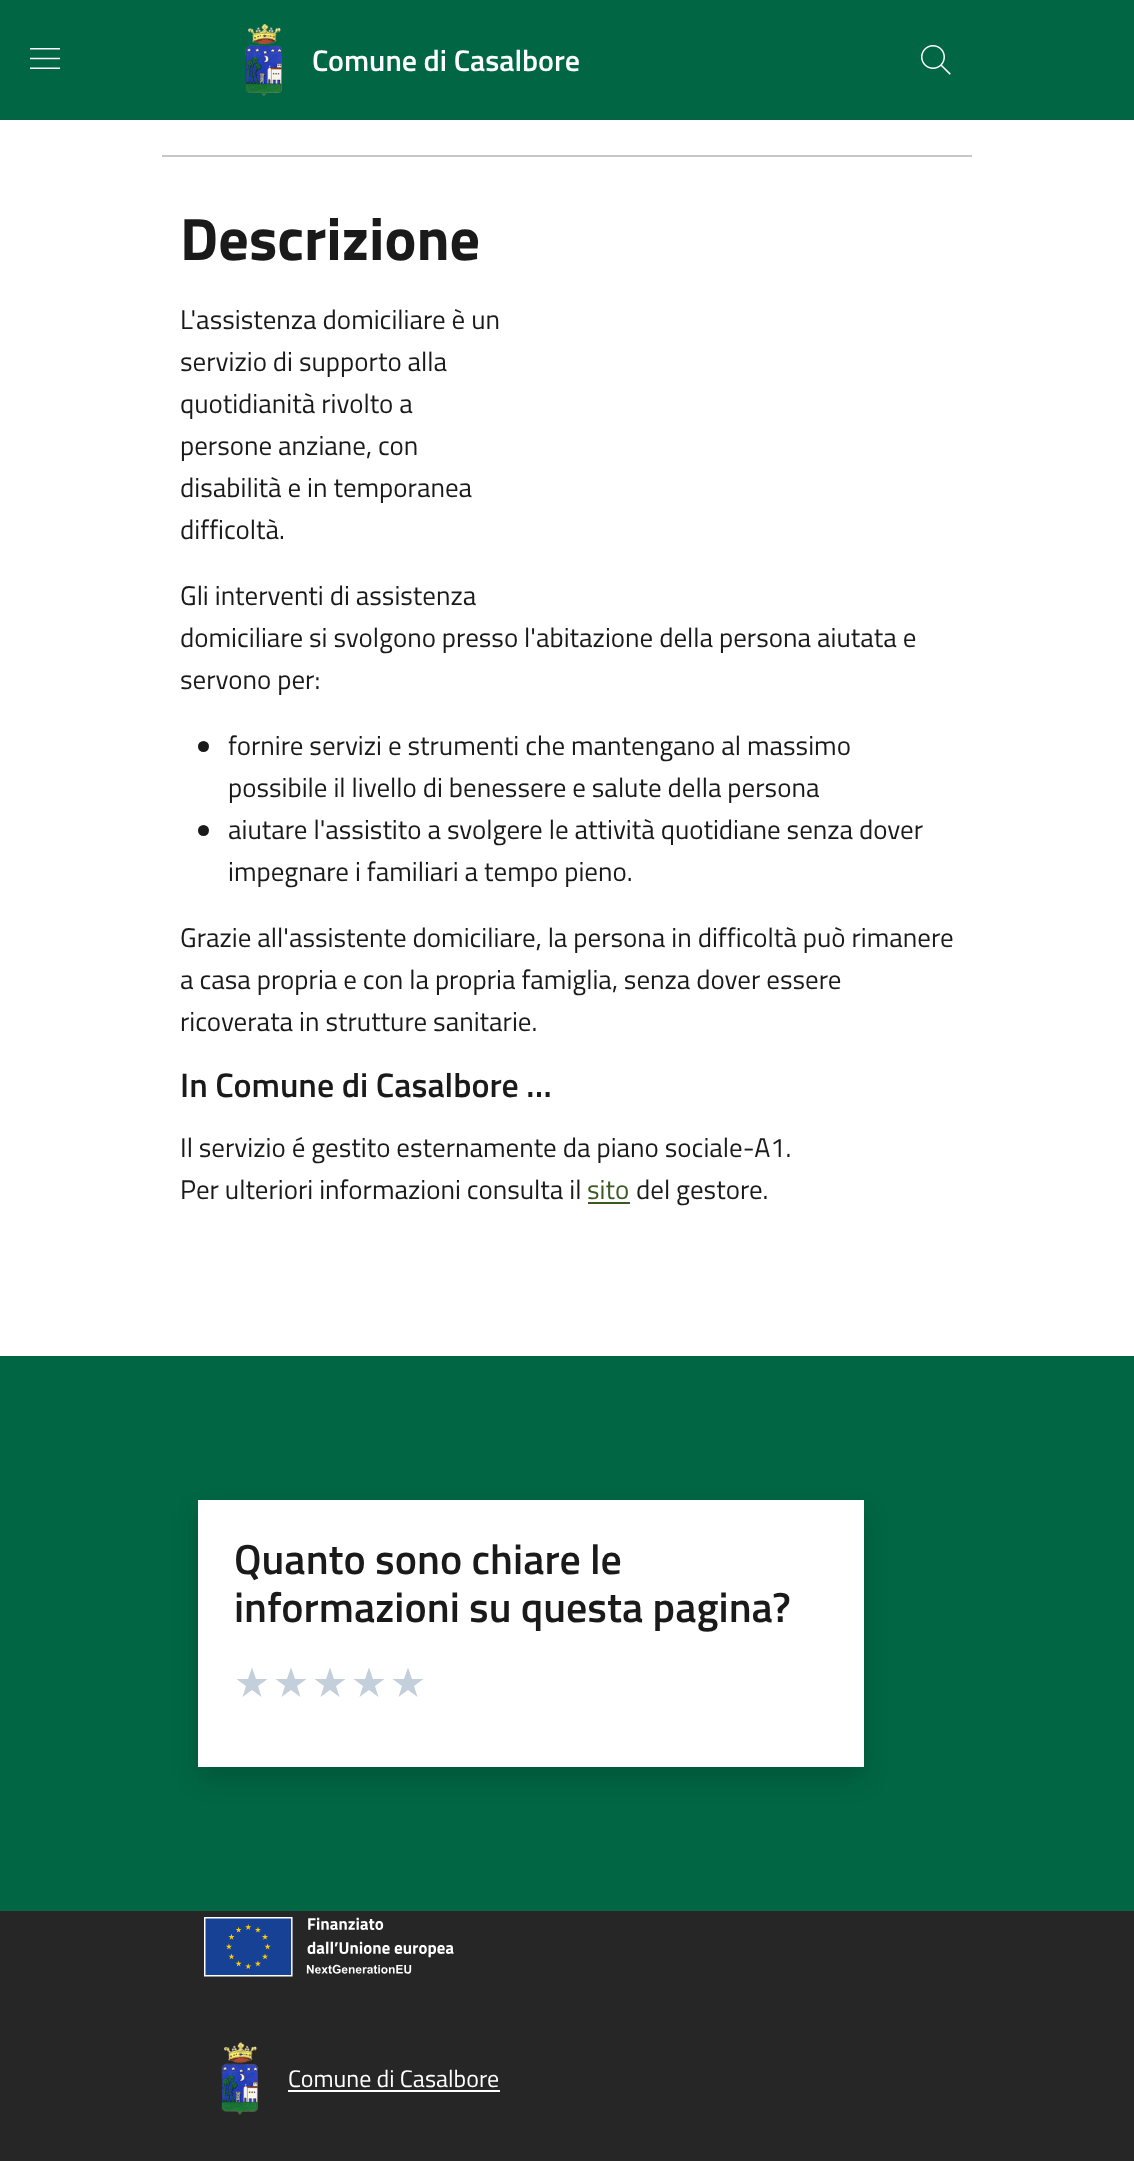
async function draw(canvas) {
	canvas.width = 1134;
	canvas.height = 2161;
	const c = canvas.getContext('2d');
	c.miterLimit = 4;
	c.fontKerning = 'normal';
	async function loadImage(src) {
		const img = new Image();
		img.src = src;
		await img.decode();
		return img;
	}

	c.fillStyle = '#fff';
	c.fillRect(0, 0, 1134, 2161);
	c.fillStyle = '#016644';
	c.fillRect(0, 0, 1134, 120);
	c.drawImage(await loadImage('img1.png'), 30, 48, 30, 21);
	c.drawImage(await loadImage('img2.png'), 245, 24, 37, 72);
	c.font = '600 30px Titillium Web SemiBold';
	c.fillStyle = '#fff';
	c.fillText('Comune di Casalbore', 312, 71);
	c.drawImage(await loadImage('img3.png'), 921, 45, 30, 30);
	c.fillStyle = '#c5c7c9';
	c.fillRect(162, 155, 810, 2);
	c.font = 'bold 60px Titillium Web';
	c.fillStyle = '#1a1a1a';
	c.fillText('Descrizione', 180, 260);
	c.font = '27px Titillium Web';
	for (const [text, x, y] of [
		['L\'assistenza domiciliare è un', 180, 329],
		['servizio di supporto alla', 180, 371],
		['quotidianità rivolto a', 180, 413],
		['persone anziane, con', 180, 455],
		['disabilità e in temporanea', 180, 497],
		['difficoltà.', 180, 539],
		['Gli interventi di assistenza', 180, 605],
		['domiciliare si svolgono presso l\'abitazione della persona aiutata e', 180, 647],
		['servono per:', 180, 689],
	]) {
		c.fillText(text, x, y);
	}
	c.beginPath();
	c.arc(203.5, 746.5, 5.5, 0, 2 * Math.PI);
	c.fill();
	c.fillText('fornire servizi e strumenti che mantengano al massimo', 228, 755);
	c.fillText('possibile il livello di benessere e salute della persona', 228, 797);
	c.beginPath();
	c.arc(203.5, 830.5, 5.5, 0, 2 * Math.PI);
	c.fill();
	for (const [text, x, y] of [
		['aiutare l\'assistito a svolgere le attività quotidiane senza dover', 228, 839],
		['impegnare i familiari a tempo pieno.', 228, 881],
		['Grazie all\'assistente domiciliare, la persona in difficoltà può rimanere', 180, 947],
		['a casa propria e con la propria famiglia, senza dover essere', 180, 989],
		['ricoverata in strutture sanitarie.', 180, 1031],
	]) {
		c.fillText(text, x, y);
	}
	c.font = '600 34px Titillium Web SemiBold';
	c.fillText('In Comune di Casalbore …', 180, 1097);
	c.font = '27px Titillium Web';
	c.fillText('Il servizio é gestito esternamente da piano sociale-A1.', 180, 1157);
	c.fillText('Per ulteriori informazioni consulta il', 180, 1199);
	c.fillStyle = '#3b5922';
	c.fillText('sito', 587, 1199);
	c.fillRect(588, 1202, 42, 2);
	c.fillStyle = '#1a1a1a';
	c.fillText('del gestore.', 636, 1199);
	c.fillStyle = '#016644';
	c.fillRect(0, 1356, 1134, 555);
	c.fillStyle = '#00000026';
	c.filter = 'blur(12px)';
	c.beginPath();
	c.rect(198, 1512, 666, 267);
	c.fill();
	c.filter = 'none';
	c.fillStyle = '#fff';
	c.fillRect(198, 1500, 666, 267);
	c.font = '600 42px Titillium Web SemiBold';
	c.fillStyle = '#1a1a1a';
	c.fillText('Quanto sono chiare le', 234, 1574);
	c.fillText('informazioni su questa pagina?', 234, 1622);
	c.fillStyle = '#c3cfdb';
	c.beginPath();
	c.moveTo(252, 1667.5);
	c.lineTo(248, 1679);
	c.lineTo(236.5, 1679);
	c.lineTo(246, 1686);
	c.lineTo(242.5, 1697);
	c.lineTo(252, 1690);
	c.lineTo(261.5, 1697);
	c.lineTo(258, 1686);
	c.lineTo(267.5, 1679);
	c.lineTo(256, 1679);
	c.closePath();
	c.fill();
	c.beginPath();
	c.moveTo(291, 1667.5);
	c.lineTo(287, 1679);
	c.lineTo(275.5, 1679);
	c.lineTo(285, 1686);
	c.lineTo(281.5, 1697);
	c.lineTo(291, 1690);
	c.lineTo(300.5, 1697);
	c.lineTo(297, 1686);
	c.lineTo(306.5, 1679);
	c.lineTo(295, 1679);
	c.closePath();
	c.fill();
	c.beginPath();
	c.moveTo(330, 1667.5);
	c.lineTo(326, 1679);
	c.lineTo(314.5, 1679);
	c.lineTo(324, 1686);
	c.lineTo(320.5, 1697);
	c.lineTo(330, 1690);
	c.lineTo(339.5, 1697);
	c.lineTo(336, 1686);
	c.lineTo(345.5, 1679);
	c.lineTo(334, 1679);
	c.closePath();
	c.fill();
	c.beginPath();
	c.moveTo(369, 1667.5);
	c.lineTo(365, 1679);
	c.lineTo(353.5, 1679);
	c.lineTo(363, 1686);
	c.lineTo(359.5, 1697);
	c.lineTo(369, 1690);
	c.lineTo(378.5, 1697);
	c.lineTo(375, 1686);
	c.lineTo(384.5, 1679);
	c.lineTo(373, 1679);
	c.closePath();
	c.fill();
	c.beginPath();
	c.moveTo(408, 1667.5);
	c.lineTo(404, 1679);
	c.lineTo(392.5, 1679);
	c.lineTo(402, 1686);
	c.lineTo(398.5, 1697);
	c.lineTo(408, 1690);
	c.lineTo(417.5, 1697);
	c.lineTo(414, 1686);
	c.lineTo(423.5, 1679);
	c.lineTo(412, 1679);
	c.closePath();
	c.fill();
	c.fillStyle = '#262626';
	c.fillRect(0, 1911, 1134, 250);
	c.drawImage(await loadImage('img4.png'), 204, 1917, 250, 60);
	c.drawImage(await loadImage('img5.png'), 221, 2042, 37, 73);
	c.font = '24px Titillium Web';
	c.fillStyle = '#fff';
	c.fillText('Comune di Casalbore', 288, 2087);
	c.fillRect(288, 2090, 212, 2);
}

draw(document.querySelector('canvas'));
